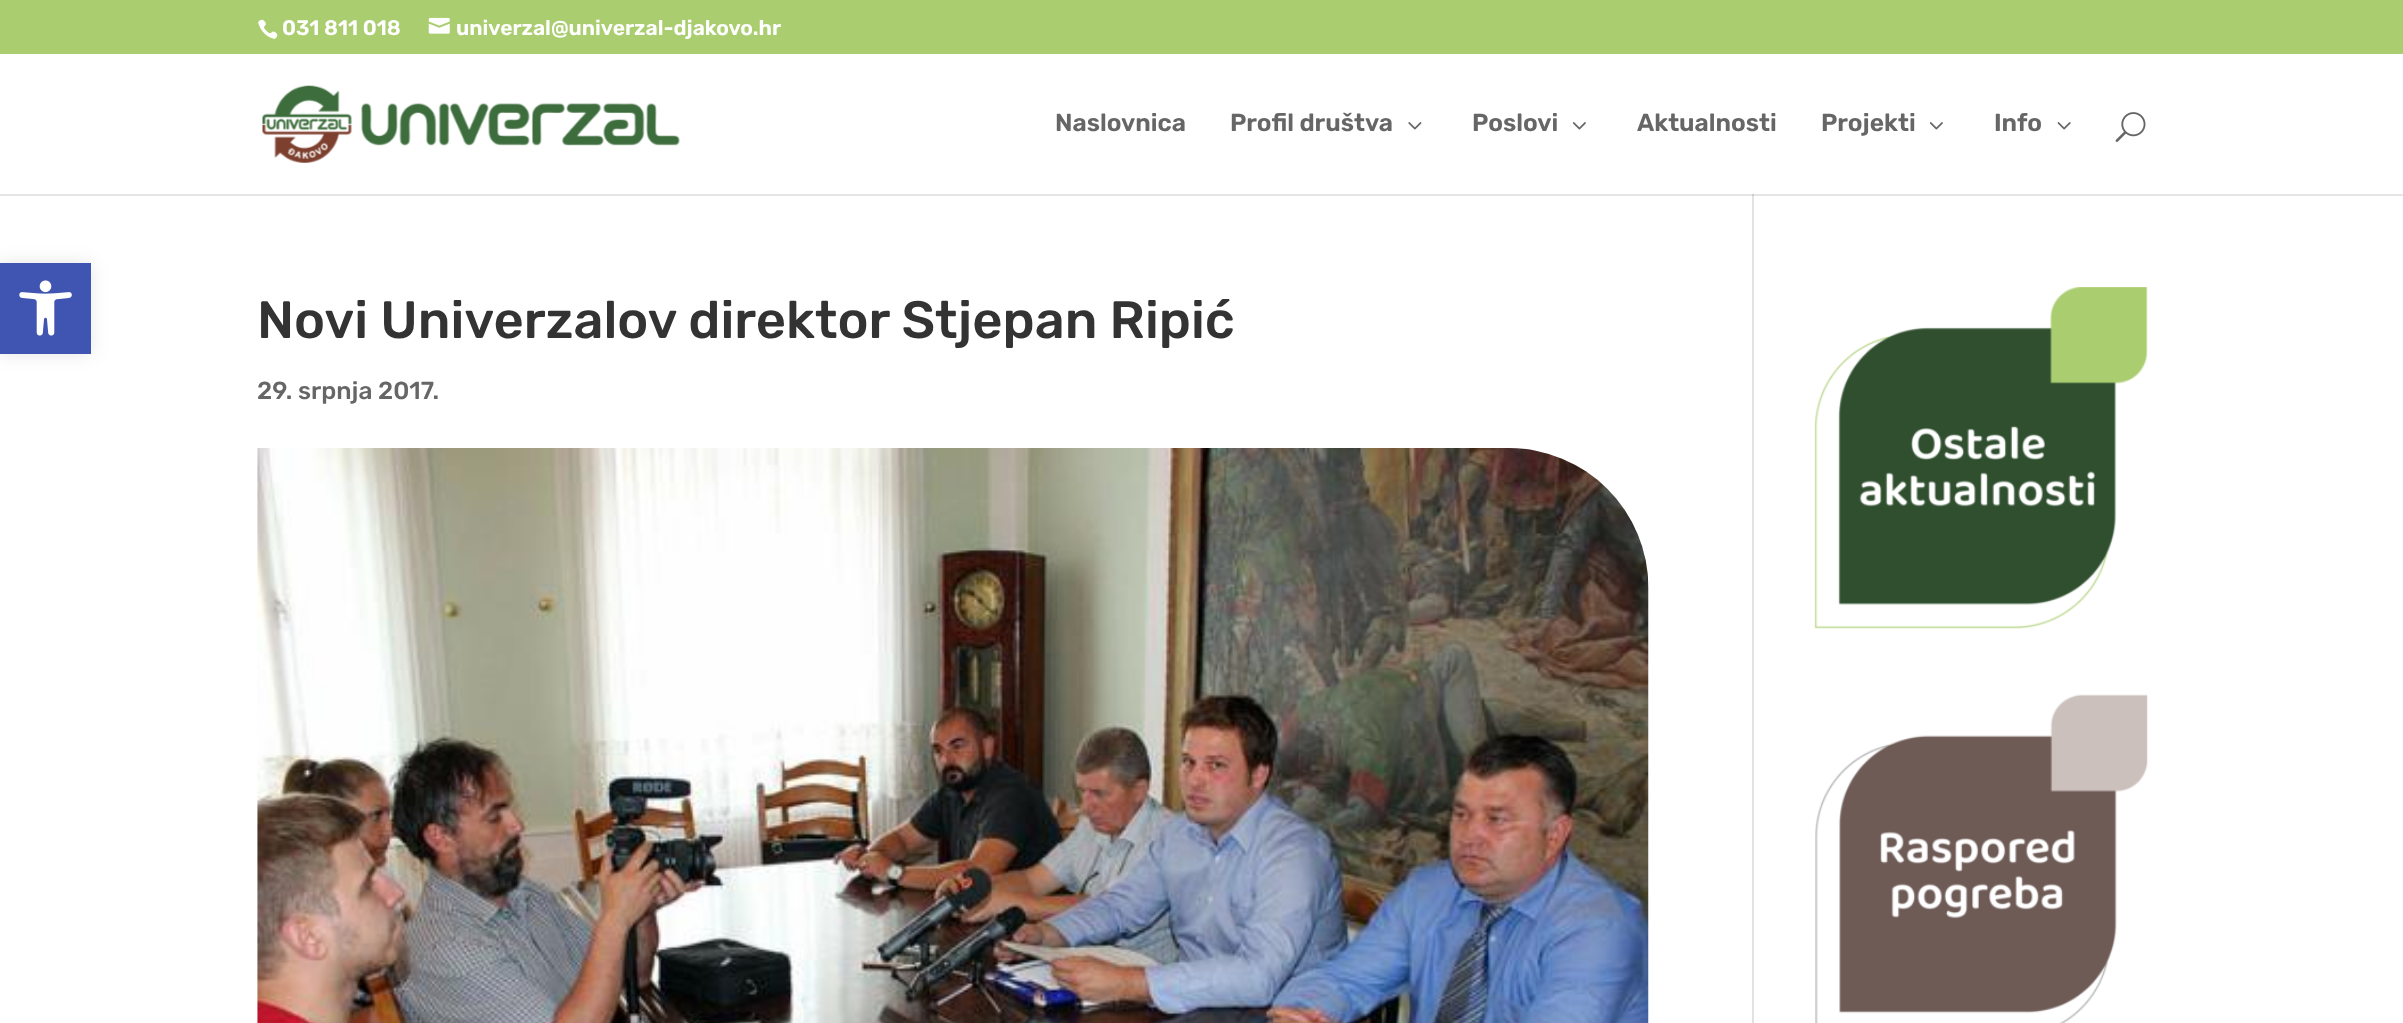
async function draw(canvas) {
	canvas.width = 2403;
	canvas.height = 1023;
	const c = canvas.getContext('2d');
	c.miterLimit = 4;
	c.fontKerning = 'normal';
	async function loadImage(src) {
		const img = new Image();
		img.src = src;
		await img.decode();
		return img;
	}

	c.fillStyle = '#fff';
	c.fillRect(0, 0, 2403, 1023);
	c.fillStyle = '#0000001a';
	c.filter = 'blur(9px)';
	c.beginPath();
	c.rect(0, 263, 91, 91);
	c.fill();
	c.filter = 'none';
	c.fillStyle = '#4054b2';
	c.fillRect(0, 263, 91, 91);
	c.drawImage(await loadImage('img1.png'), 19, 280, 53, 56);
	c.fillStyle = '#aacd70';
	c.fillRect(0, 0, 2403, 54);
	c.drawImage(await loadImage('img2.png'), 258, 19, 20, 20);
	c.font = '600 21px Rubik';
	c.fillStyle = '#fff';
	c.fillText('031 811 018', 282, 35);
	c.drawImage(await loadImage('img3.png'), 428, 17, 22, 17);
	c.fillText('univerzal@univerzal-djakovo.hr', 456, 35);
	c.fillStyle = '#e2e2e2';
	c.fillRect(1752, 186, 2, 837);
	c.fillStyle = '#0000001a';
	c.beginPath();
	c.moveTo(0, 194);
	c.lineTo(0, 196);
	c.lineTo(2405, 196);
	c.lineTo(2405, 56);
	c.lineTo(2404, 56);
	c.lineTo(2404, 194);
	c.closePath();
	c.fill();
	c.fillStyle = '#fff';
	c.fillRect(1752, 186, 2, 8);
	c.drawImage(await loadImage('img4.png'), 262, 85, 418, 78);
	c.font = '600 24.5px Rubik';
	c.fillStyle = '#666';
	c.fillText('Naslovnica', 1055, 131);
	c.fillText('Profil društva', 1230, 131);
	c.drawImage(await loadImage('img5.png'), 1408, 122, 14, 8);
	c.fillText('Poslovi', 1472, 131);
	c.drawImage(await loadImage('img6.png'), 1572, 122, 14, 8);
	c.fillText('Aktualnosti', 1637, 131);
	c.fillText('Projekti', 1821, 131);
	c.drawImage(await loadImage('img6.png'), 1929, 122, 14, 8);
	c.fillText('Info', 1994, 131);
	c.drawImage(await loadImage('img7.png'), 2057, 122, 14, 8);
	c.drawImage(await loadImage('img8.png'), 2115, 112, 31, 30);
	c.font = '300 52.5px Rubik';
	c.fillStyle = '#333';
	c.fillText('Novi Univerzalov direktor Stjepan Ripić', 257, 338);
	c.font = '300 24.5px Rubik';
	c.fillStyle = '#666';
	c.fillText('29. srpnja 2017.', 257, 399);
	c.drawImage(await loadImage('img9.png'), 257, 448, 1392, 575);
	c.drawImage(await loadImage('img10.png'), 1814, 287, 334, 342);
	c.drawImage(await loadImage('img11.png'), 1815, 694, 333, 329);
}

draw(document.querySelector('canvas'));
